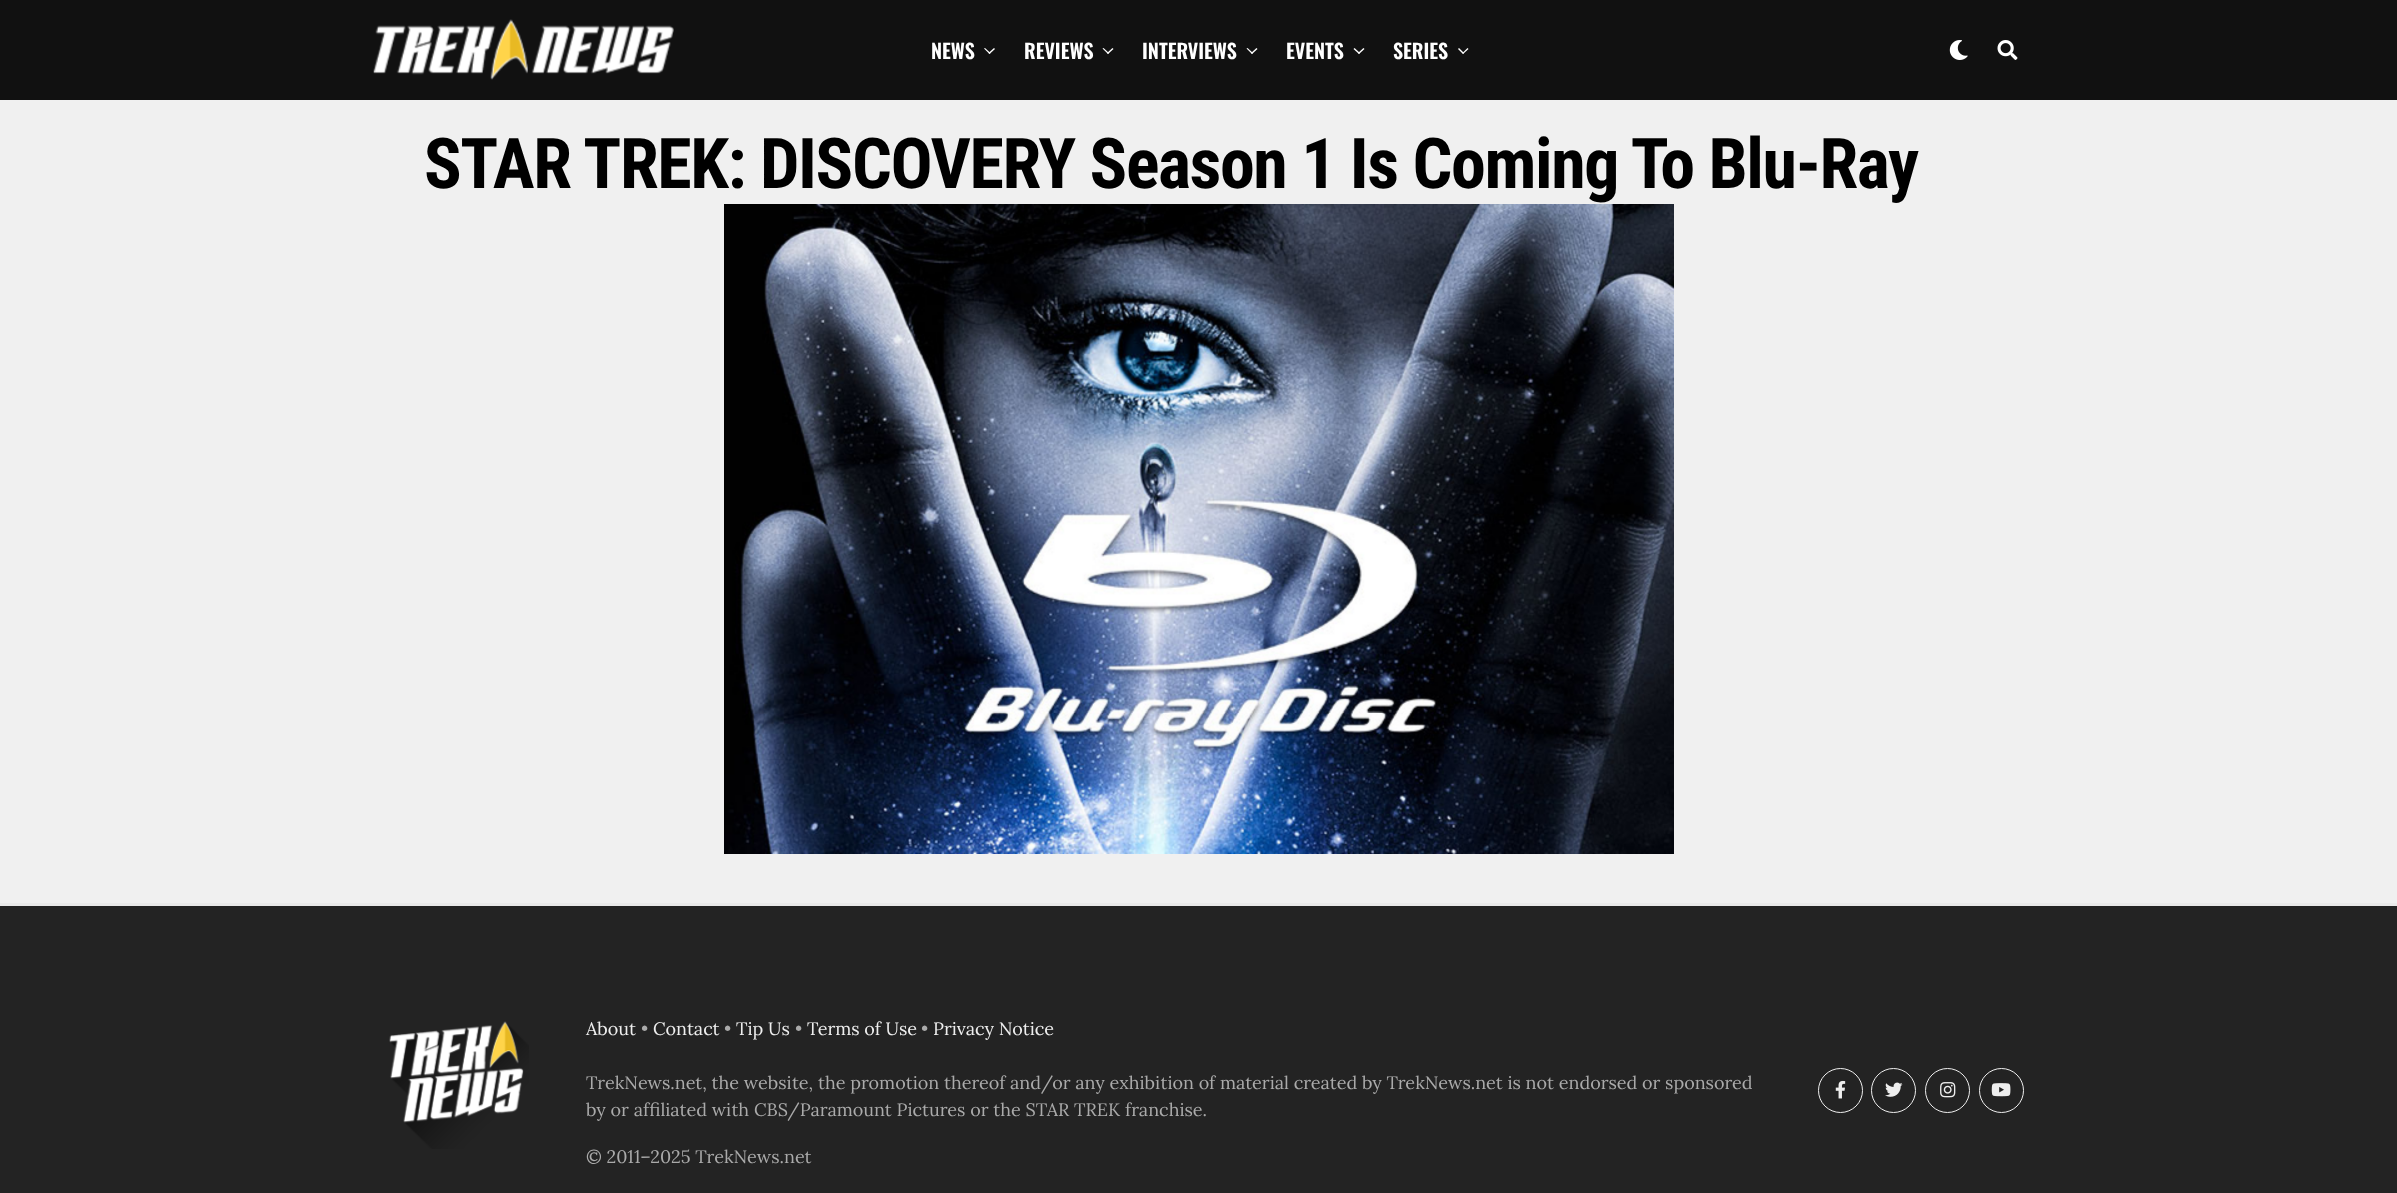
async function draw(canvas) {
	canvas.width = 2397;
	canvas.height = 1193;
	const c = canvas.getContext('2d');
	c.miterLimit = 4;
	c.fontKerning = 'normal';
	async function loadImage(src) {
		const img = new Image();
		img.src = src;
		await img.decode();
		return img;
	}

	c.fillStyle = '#f0f0f0';
	c.fillRect(0, 0, 2397, 1193);
	c.fillStyle = '#111';
	c.fillRect(0, 0, 2397, 100);
	c.drawImage(await loadImage('img1.png'), 373, 19, 301, 61);
	c.font = '600 20px Oswald';
	c.fillStyle = '#fff';
	c.fillText('NEWS', 931, 59);
	c.beginPath();
	c.moveTo(994, 48);
	c.lineTo(995, 49);
	c.lineTo(989.5, 54);
	c.lineTo(988.5, 53);
	c.closePath();
	c.fill();
	c.beginPath();
	c.moveTo(985, 48);
	c.lineTo(990.5, 53);
	c.lineTo(989.5, 54);
	c.lineTo(984, 48.5);
	c.closePath();
	c.fill();
	c.fillText('REVIEWS', 1024, 59);
	c.beginPath();
	c.moveTo(1112.5, 48);
	c.lineTo(1113.5, 49);
	c.lineTo(1108, 54);
	c.lineTo(1107, 53);
	c.closePath();
	c.fill();
	c.beginPath();
	c.moveTo(1103.5, 48);
	c.lineTo(1109, 53);
	c.lineTo(1108, 54);
	c.lineTo(1102.5, 48.5);
	c.closePath();
	c.fill();
	c.fillText('INTERVIEWS', 1142, 59);
	c.beginPath();
	c.moveTo(1256.5, 48);
	c.lineTo(1257.5, 49);
	c.lineTo(1252, 54);
	c.lineTo(1251, 53);
	c.closePath();
	c.fill();
	c.beginPath();
	c.moveTo(1247.5, 48);
	c.lineTo(1253, 53);
	c.lineTo(1252, 54);
	c.lineTo(1246.5, 48.5);
	c.closePath();
	c.fill();
	c.fillText('EVENTS', 1286, 59);
	c.beginPath();
	c.moveTo(1363.5, 48);
	c.lineTo(1364.5, 49);
	c.lineTo(1359, 54);
	c.lineTo(1358, 53);
	c.closePath();
	c.fill();
	c.beginPath();
	c.moveTo(1354.5, 48);
	c.lineTo(1360, 53);
	c.lineTo(1359, 54);
	c.lineTo(1353.5, 49);
	c.closePath();
	c.fill();
	c.fillText('SERIES', 1393, 59);
	c.beginPath();
	c.moveTo(1467.5, 48);
	c.lineTo(1468.5, 49);
	c.lineTo(1463, 54);
	c.lineTo(1462.5, 53);
	c.closePath();
	c.fill();
	c.beginPath();
	c.moveTo(1459, 48);
	c.lineTo(1464, 53);
	c.lineTo(1463, 54);
	c.lineTo(1458, 49);
	c.closePath();
	c.fill();
	c.drawImage(await loadImage('img2.png'), 1949, 40, 19, 20);
	c.drawImage(await loadImage('img3.png'), 1997, 40, 21, 20);
	c.fillStyle = '#e9e9e9';
	c.fillRect(0, 903, 2397, 3);
	c.letterSpacing = '-1.4px';
	c.font = 'bold 70px Roboto Condensed';
	c.fillStyle = '#000';
	c.fillText('STAR TREK: DISCOVERY Season 1 Is Coming To Blu-Ray', 424, 188);
	c.drawImage(await loadImage('img4.png'), 724, 204, 950, 650);
	c.fillStyle = '#232323';
	c.fillRect(0, 907, 2397, 286);
	c.fillStyle = '#222';
	c.fillRect(0, 906, 2397, 1);
	c.drawImage(await loadImage('img5.png'), 389, 1021, 140, 128);
	c.letterSpacing = '0px';
	c.font = '18px Lora';
	c.fillStyle = '#eee';
	c.fillText('About', 586, 1035);
	c.fillStyle = '#aaa';
	c.fillText('•', 641, 1035);
	c.fillStyle = '#eee';
	c.fillText('Contact', 653, 1035);
	c.fillStyle = '#aaa';
	c.fillText('•', 724, 1035);
	c.fillStyle = '#eee';
	c.fillText('Tip Us', 736, 1035);
	c.fillStyle = '#aaa';
	c.fillText('•', 795, 1035);
	c.fillStyle = '#eee';
	c.fillText('Terms of Use', 807, 1035);
	c.fillStyle = '#aaa';
	c.fillText('•', 921, 1035);
	c.fillStyle = '#eee';
	c.fillText('Privacy Notice', 933, 1035);
	c.fillStyle = '#aaa';
	for (const [text, x, y] of [
		['TrekNews.net, the website, the promotion thereof and/or any exhibition of material created by TrekNews.net is not endorsed or sponsored', 586, 1089],
		['by or affiliated with CBS/Paramount Pictures or the STAR TREK franchise.', 586, 1116],
		['© 2011–2025 TrekNews.net', 586, 1163],
	]) {
		c.fillText(text, x, y);
	}
	c.beginPath();
	c.arc(1840.5, 1090.5, 22, 0, 2 * Math.PI);
	c.strokeStyle = '#eee';
	c.stroke();
	c.drawImage(await loadImage('img6.png'), 1835, 1080, 11, 19);
	c.beginPath();
	c.arc(1893.5, 1090.5, 22, 0, 2 * Math.PI);
	c.stroke();
	c.drawImage(await loadImage('img7.png'), 1885, 1082, 18, 15);
	c.beginPath();
	c.arc(1947.5, 1090.5, 22, 0, 2 * Math.PI);
	c.stroke();
	c.drawImage(await loadImage('img8.png'), 1940, 1082, 16, 16);
	c.beginPath();
	c.arc(2001.5, 1090.5, 22, 0, 2 * Math.PI);
	c.stroke();
	c.drawImage(await loadImage('img9.png'), 1991, 1083, 20, 14);
}

draw(document.querySelector('canvas'));
